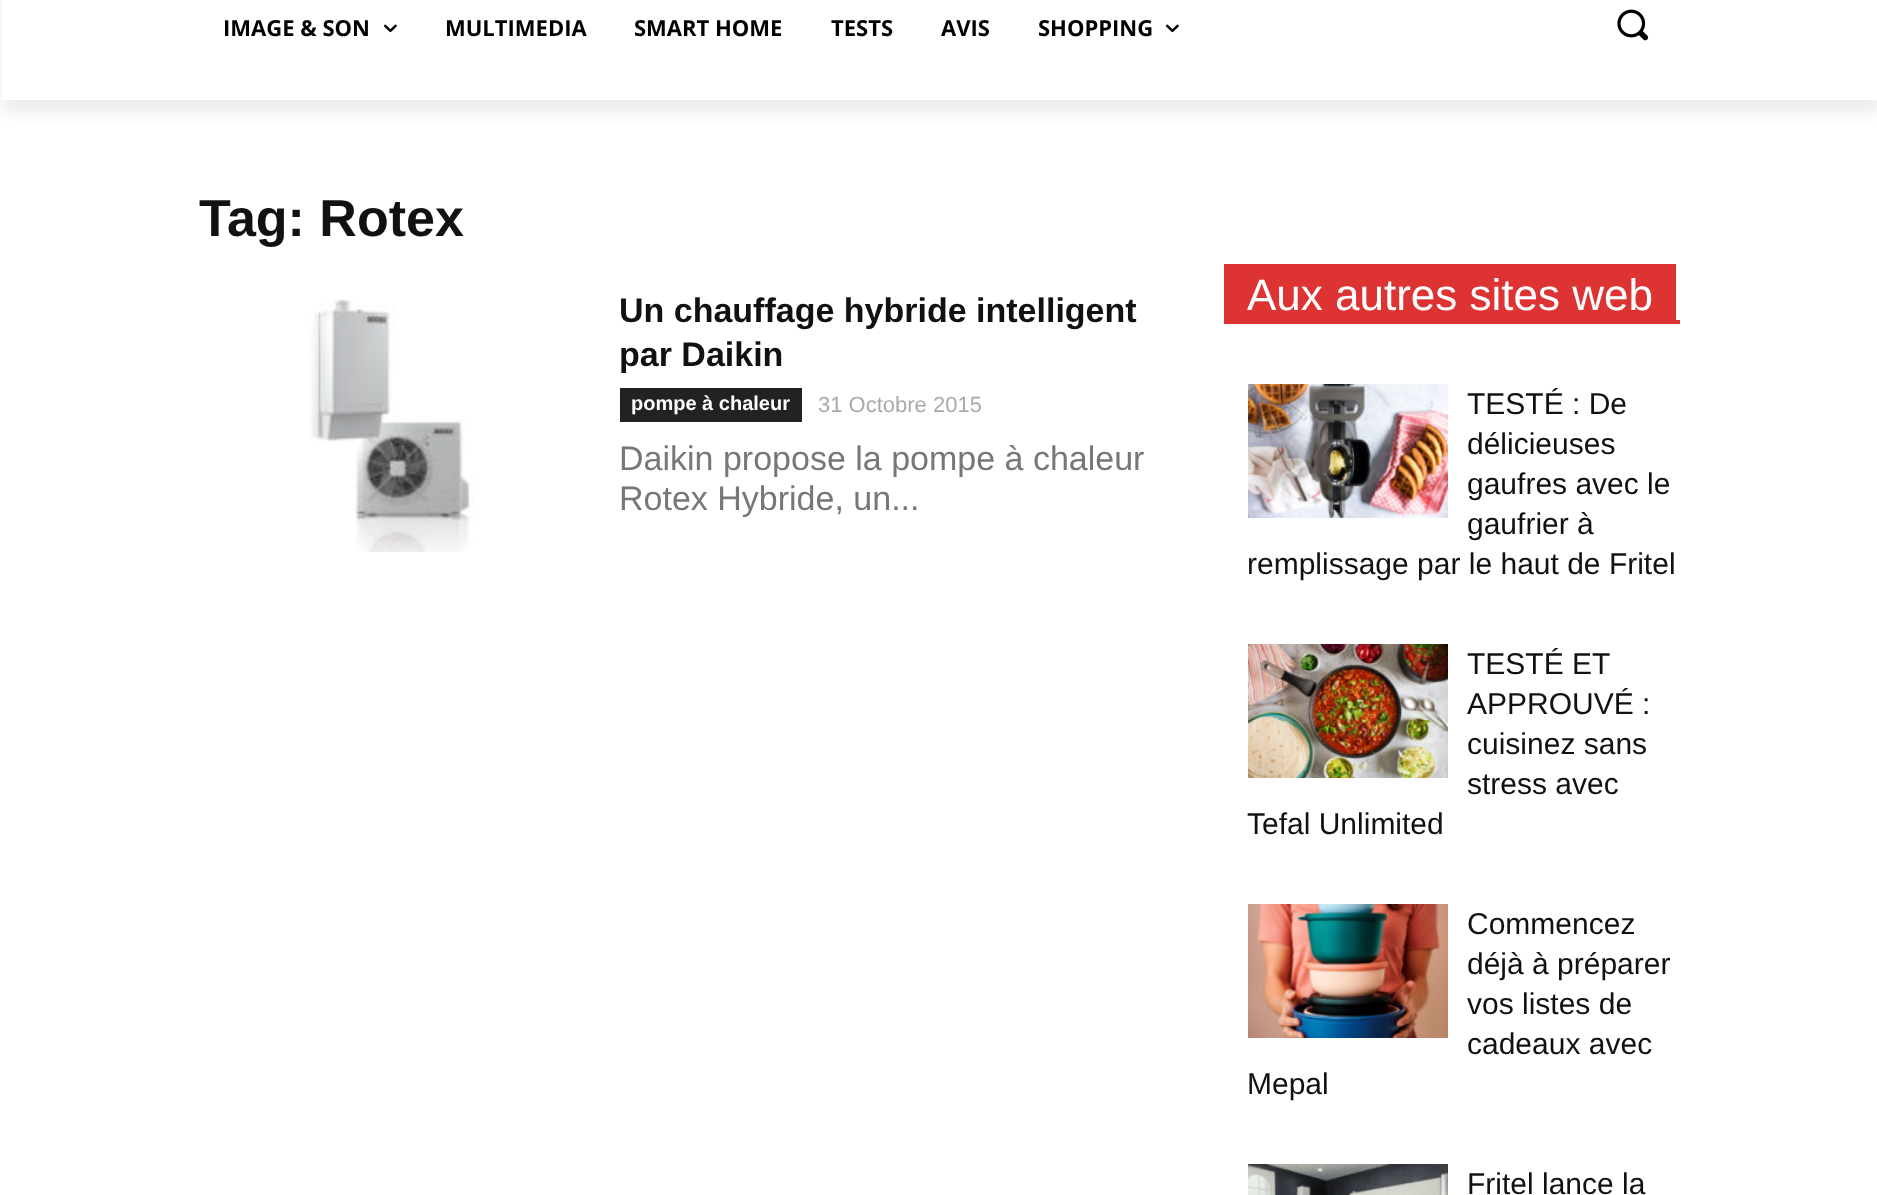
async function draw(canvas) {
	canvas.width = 1877;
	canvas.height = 1195;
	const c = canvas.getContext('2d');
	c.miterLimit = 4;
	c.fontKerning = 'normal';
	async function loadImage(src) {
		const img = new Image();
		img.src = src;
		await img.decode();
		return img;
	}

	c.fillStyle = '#fff';
	c.fillRect(0, 0, 1877, 1195);
	c.save();
	c.beginPath();
	c.moveTo(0, 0);
	c.lineTo(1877, 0);
	c.lineTo(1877, 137);
	c.lineTo(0, 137);
	c.closePath();
	c.moveTo(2, -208);
	c.lineTo(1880, -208);
	c.lineTo(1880, 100);
	c.lineTo(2, 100);
	c.closePath();
	c.clip('evenodd');
	c.fillStyle = '#00000014';
	c.filter = 'blur(8px)';
	c.beginPath();
	c.rect(2, -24, 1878, 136);
	c.fill();
	c.filter = 'none';
	c.restore();
	c.font = 'bold 22px Open Sans';
	c.fillStyle = '#000';
	c.fillText('IMAGE & SON', 223, 36);
	c.drawImage(await loadImage('img1.png'), 384, 24, 13, 9);
	for (const [text, x, y] of [
		['MULTIMEDIA', 445, 36],
		['SMART HOME', 634, 36],
		['TESTS', 831, 36],
		['AVIS', 941, 36],
		['SHOPPING', 1038, 36],
	]) {
		c.fillText(text, x, y);
	}
	c.drawImage(await loadImage('img1.png'), 1166, 24, 13, 9);
	c.drawImage(await loadImage('img2.png'), 1617, 9, 32, 32);
	c.font = 'bold 52px Liberation Sans';
	c.fillStyle = '#111';
	c.fillText('Tag: Rotex', 199, 236);
	c.drawImage(await loadImage('img3.png'), 310, 299, 164, 253);
	c.font = 'bold 34px Liberation Sans';
	c.fillText('Un chauffage hybride intelligent', 619, 322);
	c.fillText('par Daikin', 619, 366);
	c.fillStyle = '#222';
	c.fillRect(620, 388, 182, 34);
	c.font = 'bold 20px Liberation Sans';
	c.fillStyle = '#fff';
	c.fillText('pompe à chaleur', 631, 410);
	c.font = '22px Liberation Sans';
	c.fillStyle = '#aaa';
	c.fillText('31 Octobre 2015', 818, 412);
	c.font = '34px Liberation Sans';
	c.fillStyle = '#777';
	c.fillText('Daikin propose la pompe à chaleur', 619, 470);
	c.fillText('Rotex Hybride, un...', 619, 510);
	c.fillStyle = '#d33';
	c.fillRect(1224, 320, 456, 4);
	c.fillRect(1224, 264, 452, 56);
	c.font = '44px Liberation Sans';
	c.fillStyle = '#fff';
	c.fillText('Aux autres sites web', 1247, 310);
	c.drawImage(await loadImage('img4.png'), 1248, 384, 200, 134);
	c.font = '30px Liberation Sans';
	c.fillStyle = '#111';
	for (const [text, x, y] of [
		['TESTÉ : De', 1467, 414],
		['délicieuses', 1467, 454],
		['gaufres avec le', 1467, 494],
		['gaufrier à', 1467, 534],
		['remplissage par le haut de Fritel', 1247, 574],
	]) {
		c.fillText(text, x, y);
	}
	c.drawImage(await loadImage('img5.png'), 1248, 644, 200, 134);
	for (const [text, x, y] of [
		['TESTÉ ET', 1467, 674],
		['APPROUVÉ :', 1467, 714],
		['cuisinez sans', 1467, 754],
		['stress avec', 1467, 794],
		['Tefal Unlimited', 1247, 834],
	]) {
		c.fillText(text, x, y);
	}
	c.drawImage(await loadImage('img6.png'), 1248, 904, 200, 134);
	for (const [text, x, y] of [
		['Commencez', 1467, 934],
		['déjà à préparer', 1467, 974],
		['vos listes de', 1467, 1014],
		['cadeaux avec', 1467, 1054],
		['Mepal', 1247, 1094],
	]) {
		c.fillText(text, x, y);
	}
	c.drawImage(await loadImage('img7.png'), 1248, 1164, 200, 31);
	c.fillText('Fritel lance la', 1467, 1194);
}

draw(document.querySelector('canvas'));
